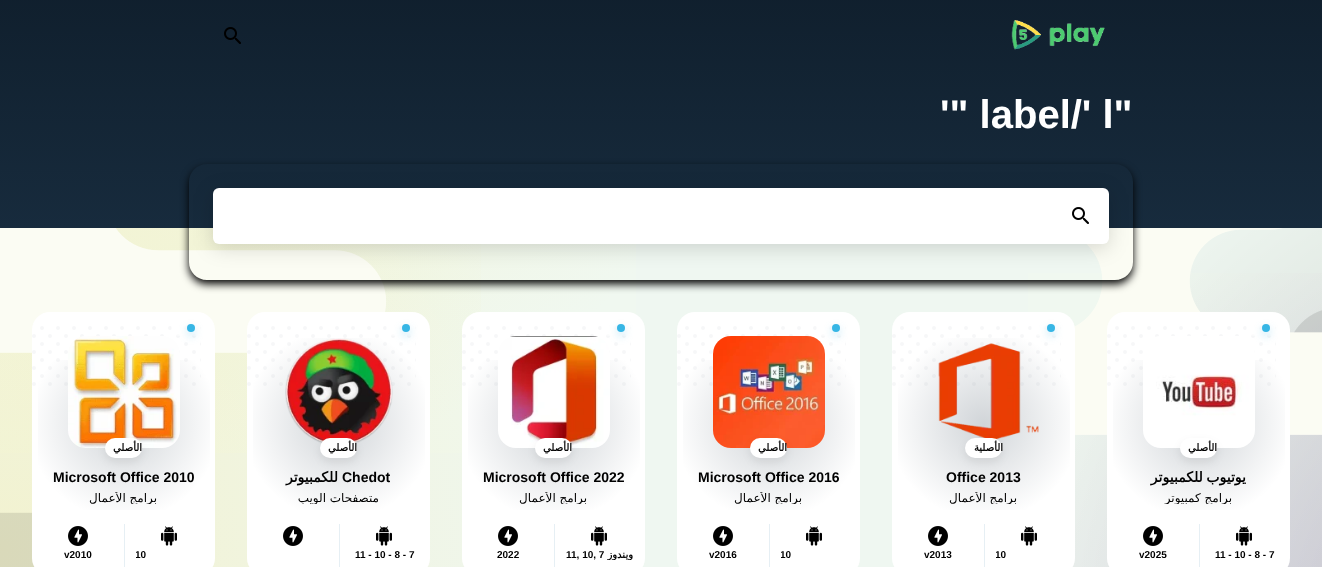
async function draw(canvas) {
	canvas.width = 1322;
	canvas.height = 567;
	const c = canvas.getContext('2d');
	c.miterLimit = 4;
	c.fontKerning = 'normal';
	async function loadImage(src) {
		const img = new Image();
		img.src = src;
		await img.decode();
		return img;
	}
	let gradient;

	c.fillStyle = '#eff7f1';
	c.fillRect(0, 0, 1322, 567);
	gradient = c.createLinearGradient(661, 228, 661, -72);
	gradient.addColorStop(0, '#172b3d');
	gradient.addColorStop(1, '#0e1c29');
	c.fillStyle = gradient;
	c.fillRect(0, 0, 1322, 228);
	c.drawImage(await loadImage('img1.png'), 224, 27, 17, 17);
	c.drawImage(await loadImage('img2.png'), 1011, 20, 94, 30);
	c.font = 'bold 40px Liberation Sans';
	c.fillStyle = '#fff';
	c.fillText('\'" label/\' l"', 940, 128);
	gradient = c.createRadialGradient(181, -120, 0, 181, -120, 600);
	gradient.addColorStop(0, '#f3f3cf');
	gradient.addColorStop(1, '#f0f8f0');
	c.fillStyle = gradient;
	c.fillRect(0, 228, 636, 225);
	gradient = c.createRadialGradient(1, 549, 0, 1, 549, 600);
	gradient.addColorStop(0, '#fede4a33');
	gradient.addColorStop(1, '#fede4a00');
	c.fillStyle = gradient;
	c.fillRect(0, 228, 481, 339);
	gradient = c.createRadialGradient(1525, 769, 0, 1525, 769, 600);
	gradient.addColorStop(0, '#dfd7ef');
	gradient.addColorStop(1, '#f0f8f0');
	c.fillStyle = gradient;
	c.fillRect(1028, 273, 294, 294);
	gradient = c.createRadialGradient(1592, 655, 0, 1592, 655, 600);
	gradient.addColorStop(0, '#00000033');
	gradient.addColorStop(1, '#00000000');
	c.fillStyle = gradient;
	c.fillRect(1072, 228, 250, 339);
	c.drawImage(await loadImage('img3.png'), 0, 228, 1322, 339);
	c.save();
	c.beginPath();
	c.moveTo(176, 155);
	c.lineTo(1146, 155);
	c.lineTo(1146, 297);
	c.lineTo(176, 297);
	c.closePath();
	c.moveTo(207, 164);
	c.lineTo(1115, 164);
	c.bezierCurveTo(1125, 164, 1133, 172, 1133, 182);
	c.lineTo(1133, 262);
	c.bezierCurveTo(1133, 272, 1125, 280, 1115, 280);
	c.lineTo(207, 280);
	c.bezierCurveTo(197, 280, 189, 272, 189, 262);
	c.lineTo(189, 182);
	c.bezierCurveTo(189, 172, 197, 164, 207, 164);
	c.closePath();
	c.clip('evenodd');
	c.fillStyle = '#000';
	c.filter = 'blur(4px)';
	c.beginPath();
	c.roundRect(189, 168, 944, 116, 18);
	c.fill();
	c.filter = 'none';
	c.restore();
	c.fillStyle = '#00000026';
	c.filter = 'blur(10px)';
	c.beginPath();
	c.roundRect(213, 192, 896, 56, 6);
	c.fill();
	c.filter = 'none';
	c.fillStyle = '#fff';
	c.beginPath();
	c.roundRect(213, 188, 896, 56, 6);
	c.fill();
	c.drawImage(await loadImage('img4.png'), 1072, 207, 17, 17);
	c.beginPath();
	c.roundRect(32, 312, 183, 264, 18);
	c.fill();
	c.drawImage(await loadImage('img5.png'), 32, 326, 169, 60);
	c.fillStyle = '#ffffff80';
	c.beginPath();
	c.roundRect(171, 320, 36, 16, 8);
	c.fill();
	gradient = c.createRadialGradient(124, 424, 0, 124, 424, 96);
	gradient.addColorStop(0, '#172b3d33');
	gradient.addColorStop(1, '#172b3d00');
	c.fillStyle = gradient;
	c.fillRect(38, 360, 172, 150);
	c.drawImage(await loadImage('img6.png'), 68, 336, 112, 112);
	c.fillStyle = '#37b0e54d';
	c.filter = 'blur(4px)';
	c.beginPath();
	c.roundRect(187, 328, 8, 8, 4);
	c.fill();
	c.filter = 'none';
	c.fillStyle = '#37b6e5';
	c.beginPath();
	c.arc(191, 328, 4, 0, 2 * Math.PI);
	c.fill();
	c.fillStyle = '#00000012';
	c.filter = 'blur(4px)';
	c.beginPath();
	c.roundRect(105, 442, 37, 20, 10);
	c.fill();
	c.filter = 'none';
	c.fillStyle = '#fff';
	c.beginPath();
	c.roundRect(105, 438, 37, 20, 10);
	c.fill();
	c.letterSpacing = '0.75px';
	c.direction = 'rtl';
	c.font = 'bold 10px DejaVu Sans';
	c.fillStyle = '#000';
	c.fillText('الأصلي', 142, 451);
	c.letterSpacing = '0px';
	c.direction = 'ltr';
	c.font = 'bold 14px Liberation Sans';
	c.fillText('Microsoft Office 2010', 53, 482);
	c.save();
	c.beginPath();
	c.rect(48, 492, 151, 12);
	c.clip();
	c.direction = 'rtl';
	c.font = '12px DejaVu Sans';
	c.fillText('برامج الأعمال', 157, 502);
	c.restore();
	c.drawImage(await loadImage('img7.png'), 68, 526, 20, 20);
	c.font = 'bold 10px Liberation Sans';
	c.fillText('v2010', 64, 558);
	c.fillStyle = '#e6eff4';
	c.fillRect(124, 524, 1, 43);
	c.drawImage(await loadImage('img8.png'), 161, 526, 16, 20);
	c.save();
	c.beginPath();
	c.rect(136, 550, 67, 10);
	c.clip();
	c.fillStyle = '#000';
	c.fillText('10', 135, 558);
	c.restore();
	c.fillStyle = '#fff';
	c.beginPath();
	c.roundRect(247, 312, 183, 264, 18);
	c.fill();
	c.drawImage(await loadImage('img5.png'), 247, 326, 169, 60);
	c.fillStyle = '#ffffff80';
	c.beginPath();
	c.roundRect(386, 320, 36, 16, 8);
	c.fill();
	gradient = c.createRadialGradient(339, 424, 0, 339, 424, 96);
	gradient.addColorStop(0, '#172b3d33');
	gradient.addColorStop(1, '#172b3d00');
	c.fillStyle = gradient;
	c.fillRect(253, 338, 172, 172);
	c.drawImage(await loadImage('img9.png'), 285, 338, 108, 106);
	c.fillStyle = '#37b0e54d';
	c.filter = 'blur(4px)';
	c.beginPath();
	c.roundRect(402, 328, 8, 8, 4);
	c.fill();
	c.filter = 'none';
	c.fillStyle = '#37b6e5';
	c.beginPath();
	c.arc(406, 328, 4, 0, 2 * Math.PI);
	c.fill();
	c.fillStyle = '#00000012';
	c.filter = 'blur(4px)';
	c.beginPath();
	c.roundRect(320, 442, 37, 20, 10);
	c.fill();
	c.filter = 'none';
	c.fillStyle = '#fff';
	c.beginPath();
	c.roundRect(320, 438, 37, 20, 10);
	c.fill();
	c.letterSpacing = '0.75px';
	c.direction = 'rtl';
	c.font = 'bold 10px DejaVu Sans';
	c.fillStyle = '#000';
	c.fillText('الأصلي', 357, 451);
	c.letterSpacing = '0px';
	c.font = 'bold 14px DejaVu Sans';
	c.fillText('للكمبيوتر', 338, 482);
	c.direction = 'ltr';
	c.font = 'bold 14px Liberation Sans';
	c.fillText('Chedot', 342, 482);
	c.save();
	c.beginPath();
	c.rect(263, 492, 151, 12);
	c.clip();
	c.direction = 'rtl';
	c.font = '12px DejaVu Sans';
	c.fillText('متصفحات الويب', 379, 502);
	c.restore();
	c.drawImage(await loadImage('img7.png'), 283, 526, 20, 20);
	c.fillStyle = '#e6eff4';
	c.fillRect(339, 524, 1, 43);
	c.drawImage(await loadImage('img8.png'), 376, 526, 16, 20);
	c.font = 'bold 10px Liberation Sans';
	c.fillStyle = '#000';
	c.fillText('11 - 10 - 8 - 7', 355, 558);
	c.fillStyle = '#fff';
	c.beginPath();
	c.roundRect(462, 312, 183, 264, 18);
	c.fill();
	c.drawImage(await loadImage('img10.png'), 462, 326, 169, 60);
	c.fillStyle = '#ffffff80';
	c.beginPath();
	c.roundRect(601, 320, 36, 16, 8);
	c.fill();
	gradient = c.createRadialGradient(554, 424, 0, 554, 424, 96);
	gradient.addColorStop(0, '#172b3d33');
	gradient.addColorStop(1, '#172b3d00');
	c.fillStyle = gradient;
	c.fillRect(468, 360, 172, 150);
	c.drawImage(await loadImage('img11.png'), 498, 336, 112, 112);
	c.fillStyle = '#37b0e54d';
	c.filter = 'blur(4px)';
	c.beginPath();
	c.roundRect(617, 328, 8, 8, 4);
	c.fill();
	c.filter = 'none';
	c.fillStyle = '#37b6e5';
	c.beginPath();
	c.arc(621, 328, 4, 0, 2 * Math.PI);
	c.fill();
	c.fillStyle = '#00000012';
	c.filter = 'blur(4px)';
	c.beginPath();
	c.roundRect(535, 442, 37, 20, 10);
	c.fill();
	c.filter = 'none';
	c.fillStyle = '#fff';
	c.beginPath();
	c.roundRect(535, 438, 37, 20, 10);
	c.fill();
	c.letterSpacing = '0.75px';
	c.direction = 'rtl';
	c.font = 'bold 10px DejaVu Sans';
	c.fillStyle = '#000';
	c.fillText('الأصلي', 572, 451);
	c.letterSpacing = '0px';
	c.direction = 'ltr';
	c.font = 'bold 14px Liberation Sans';
	c.fillText('Microsoft Office 2022', 483, 482);
	c.save();
	c.beginPath();
	c.rect(478, 492, 151, 12);
	c.clip();
	c.direction = 'rtl';
	c.font = '12px DejaVu Sans';
	c.fillText('برامج الأعمال', 587, 502);
	c.restore();
	c.drawImage(await loadImage('img7.png'), 498, 526, 20, 20);
	c.font = 'bold 10px Liberation Sans';
	c.fillText('2022', 497, 558);
	c.fillStyle = '#e6eff4';
	c.fillRect(554, 524, 1, 43);
	c.drawImage(await loadImage('img8.png'), 591, 526, 16, 20);
	c.fillStyle = '#000';
	c.fillText('11, 10, 7', 566, 558);
	c.save();
	c.beginPath();
	c.rect(566, 550, 67, 10);
	c.clip();
	c.direction = 'rtl';
	c.font = 'bold 10px DejaVu Sans';
	c.fillText('ويندوز', 633, 558);
	c.restore();
	c.fillStyle = '#fff';
	c.beginPath();
	c.roundRect(677, 312, 183, 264, 18);
	c.fill();
	c.drawImage(await loadImage('img12.png'), 677, 326, 169, 60);
	c.fillStyle = '#ffffff80';
	c.beginPath();
	c.roundRect(816, 320, 36, 16, 8);
	c.fill();
	gradient = c.createRadialGradient(769, 424, 0, 769, 424, 96);
	gradient.addColorStop(0, '#172b3d33');
	gradient.addColorStop(1, '#172b3d00');
	c.fillStyle = gradient;
	c.fillRect(683, 360, 172, 150);
	c.drawImage(await loadImage('img13.png'), 713, 336, 112, 112);
	c.fillStyle = '#37b0e54d';
	c.filter = 'blur(4px)';
	c.beginPath();
	c.roundRect(832, 328, 8, 8, 4);
	c.fill();
	c.filter = 'none';
	c.fillStyle = '#37b6e5';
	c.beginPath();
	c.arc(836, 328, 4, 0, 2 * Math.PI);
	c.fill();
	c.fillStyle = '#00000012';
	c.filter = 'blur(4px)';
	c.beginPath();
	c.roundRect(750, 442, 37, 20, 10);
	c.fill();
	c.filter = 'none';
	c.fillStyle = '#fff';
	c.beginPath();
	c.roundRect(750, 438, 37, 20, 10);
	c.fill();
	c.letterSpacing = '0.75px';
	c.direction = 'rtl';
	c.font = 'bold 10px DejaVu Sans';
	c.fillStyle = '#000';
	c.fillText('الأصلي', 787, 451);
	c.letterSpacing = '0px';
	c.direction = 'ltr';
	c.font = 'bold 14px Liberation Sans';
	c.fillText('Microsoft Office 2016', 698, 482);
	c.save();
	c.beginPath();
	c.rect(693, 492, 151, 12);
	c.clip();
	c.direction = 'rtl';
	c.font = '12px DejaVu Sans';
	c.fillText('برامج الأعمال', 802, 502);
	c.restore();
	c.drawImage(await loadImage('img7.png'), 713, 526, 20, 20);
	c.font = 'bold 10px Liberation Sans';
	c.fillText('v2016', 709, 558);
	c.fillStyle = '#e6eff4';
	c.fillRect(769, 524, 1, 43);
	c.drawImage(await loadImage('img8.png'), 806, 526, 16, 20);
	c.save();
	c.beginPath();
	c.rect(781, 550, 67, 10);
	c.clip();
	c.fillStyle = '#000';
	c.fillText('10', 780, 558);
	c.restore();
	c.fillStyle = '#fff';
	c.beginPath();
	c.roundRect(892, 312, 183, 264, 18);
	c.fill();
	c.drawImage(await loadImage('img14.png'), 892, 326, 169, 60);
	c.fillStyle = '#ffffff80';
	c.beginPath();
	c.roundRect(1031, 320, 36, 16, 8);
	c.fill();
	gradient = c.createRadialGradient(984, 424, 0, 984, 424, 96);
	gradient.addColorStop(0, '#172b3d33');
	gradient.addColorStop(1, '#172b3d00');
	c.fillStyle = gradient;
	c.fillRect(898, 338, 172, 172);
	c.drawImage(await loadImage('img15.png'), 938, 343, 101, 97);
	c.fillStyle = '#37b0e54d';
	c.filter = 'blur(4px)';
	c.beginPath();
	c.roundRect(1047, 328, 8, 8, 4);
	c.fill();
	c.filter = 'none';
	c.fillStyle = '#37b6e5';
	c.beginPath();
	c.arc(1051, 328, 4, 0, 2 * Math.PI);
	c.fill();
	c.fillStyle = '#00000012';
	c.filter = 'blur(4px)';
	c.beginPath();
	c.roundRect(965, 442, 37, 20, 10);
	c.fill();
	c.filter = 'none';
	c.fillStyle = '#fff';
	c.beginPath();
	c.roundRect(965, 438, 37, 20, 10);
	c.fill();
	c.letterSpacing = '0.75px';
	c.direction = 'rtl';
	c.font = 'bold 10px DejaVu Sans';
	c.fillStyle = '#000';
	c.fillText('الأصلية', 1003, 451);
	c.letterSpacing = '0px';
	c.direction = 'ltr';
	c.font = 'bold 14px Liberation Sans';
	c.fillText('Office 2013', 946, 482);
	c.save();
	c.beginPath();
	c.rect(908, 492, 151, 12);
	c.clip();
	c.direction = 'rtl';
	c.font = '12px DejaVu Sans';
	c.fillText('برامج الأعمال', 1017, 502);
	c.restore();
	c.drawImage(await loadImage('img7.png'), 928, 526, 20, 20);
	c.font = 'bold 10px Liberation Sans';
	c.fillText('v2013', 924, 558);
	c.fillStyle = '#e6eff4';
	c.fillRect(984, 524, 1, 43);
	c.drawImage(await loadImage('img8.png'), 1021, 526, 16, 20);
	c.save();
	c.beginPath();
	c.rect(996, 550, 67, 10);
	c.clip();
	c.fillStyle = '#000';
	c.fillText('10', 995, 558);
	c.restore();
	c.fillStyle = '#fff';
	c.beginPath();
	c.roundRect(1107, 312, 183, 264, 18);
	c.fill();
	c.drawImage(await loadImage('img5.png'), 1107, 326, 169, 60);
	c.fillStyle = '#ffffff80';
	c.beginPath();
	c.roundRect(1246, 320, 36, 16, 8);
	c.fill();
	gradient = c.createRadialGradient(1199, 424, 0, 1199, 424, 96);
	gradient.addColorStop(0, '#172b3d33');
	gradient.addColorStop(1, '#172b3d00');
	c.fillStyle = gradient;
	c.fillRect(1113, 360, 172, 150);
	c.drawImage(await loadImage('img16.png'), 1143, 336, 112, 112);
	c.fillStyle = '#37b0e54d';
	c.filter = 'blur(4px)';
	c.beginPath();
	c.roundRect(1262, 328, 8, 8, 4);
	c.fill();
	c.filter = 'none';
	c.fillStyle = '#37b6e5';
	c.beginPath();
	c.arc(1266, 328, 4, 0, 2 * Math.PI);
	c.fill();
	c.fillStyle = '#00000012';
	c.filter = 'blur(4px)';
	c.beginPath();
	c.roundRect(1180, 442, 37, 20, 10);
	c.fill();
	c.filter = 'none';
	c.fillStyle = '#fff';
	c.beginPath();
	c.roundRect(1180, 438, 37, 20, 10);
	c.fill();
	c.letterSpacing = '0.75px';
	c.direction = 'rtl';
	c.font = 'bold 10px DejaVu Sans';
	c.fillStyle = '#000';
	c.fillText('الأصلي', 1217, 451);
	c.letterSpacing = '0px';
	c.wordSpacing = '-1px';
	c.font = 'bold 14px DejaVu Sans';
	c.fillText('يوتيوب للكمبيوتر', 1246, 482);
	c.save();
	c.beginPath();
	c.rect(1123, 492, 151, 12);
	c.clip();
	c.wordSpacing = '0px';
	c.font = '12px DejaVu Sans';
	c.fillText('برامج كمبيوتر', 1232, 502);
	c.restore();
	c.drawImage(await loadImage('img7.png'), 1143, 526, 20, 20);
	c.wordSpacing = '0px';
	c.direction = 'ltr';
	c.font = 'bold 10px Liberation Sans';
	c.fillText('v2025', 1139, 558);
	c.fillStyle = '#e6eff4';
	c.fillRect(1199, 524, 1, 43);
	c.drawImage(await loadImage('img8.png'), 1236, 526, 16, 20);
	c.fillStyle = '#000';
	c.fillText('11 - 10 - 8 - 7', 1215, 558);
}

draw(document.querySelector('canvas'));
